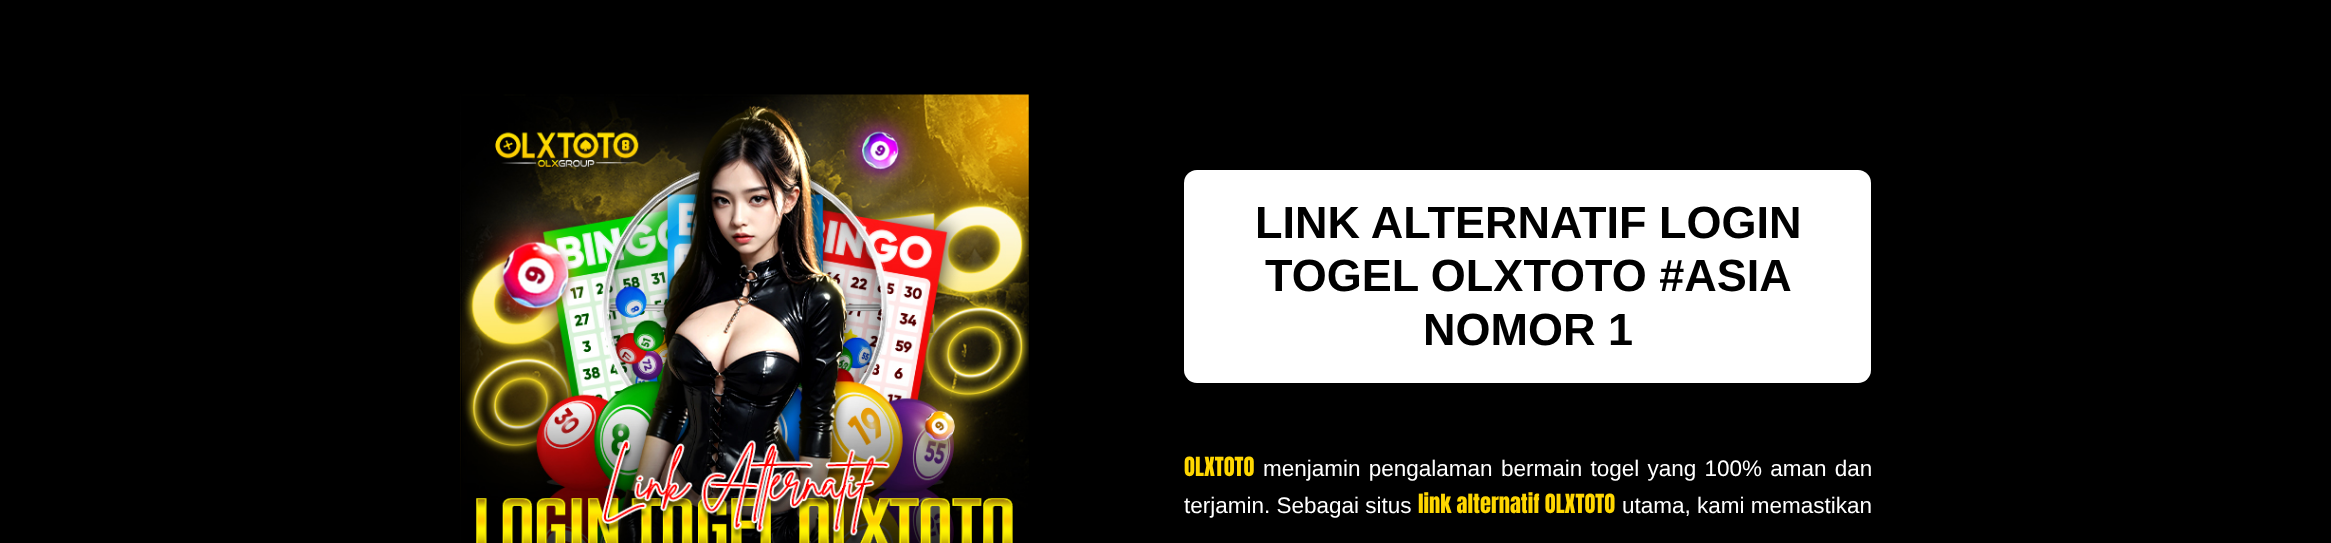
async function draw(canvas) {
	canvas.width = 2331;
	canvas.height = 543;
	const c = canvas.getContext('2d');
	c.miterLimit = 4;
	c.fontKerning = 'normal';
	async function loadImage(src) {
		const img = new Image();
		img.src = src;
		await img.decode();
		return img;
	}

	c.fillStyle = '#000';
	c.fillRect(0, 0, 2331, 543);
	c.drawImage(await loadImage('img1.png'), 460, 94, 569, 449);
	c.fillStyle = '#fff';
	c.beginPath();
	c.roundRect(1184, 170, 687, 213, 13);
	c.fill();
	c.font = 'bold 45px Liberation Sans';
	c.fillStyle = '#000';
	for (const [text, x, y] of [
		['LINK ALTERNATIF LOGIN', 1255, 238],
		['TOGEL OLXTOTO #ASIA', 1265, 291],
		['NOMOR 1', 1423, 345],
	]) {
		c.fillText(text, x, y);
	}
	c.font = '22.5px Anton';
	c.fillStyle = '#ffd700';
	c.fillText('OLXTOTO', 1184, 476);
	c.wordSpacing = '2px';
	c.font = '22.5px Liberation Sans';
	c.fillStyle = '#fff';
	c.fillText('menjamin pengalaman bermain togel yang 100% aman dan', 1263, 476);
	c.wordSpacing = '0px';
	c.fillText('terjamin. Sebagai situs', 1184, 513);
	c.font = '22.5px Anton';
	c.fillStyle = '#ffd700';
	c.fillText('link alternatif OLXTOTO', 1418, 513);
	c.font = '22.5px Liberation Sans';
	c.fillStyle = '#fff';
	c.fillText('utama, kami memastikan', 1622, 513);
}

draw(document.querySelector('canvas'));
